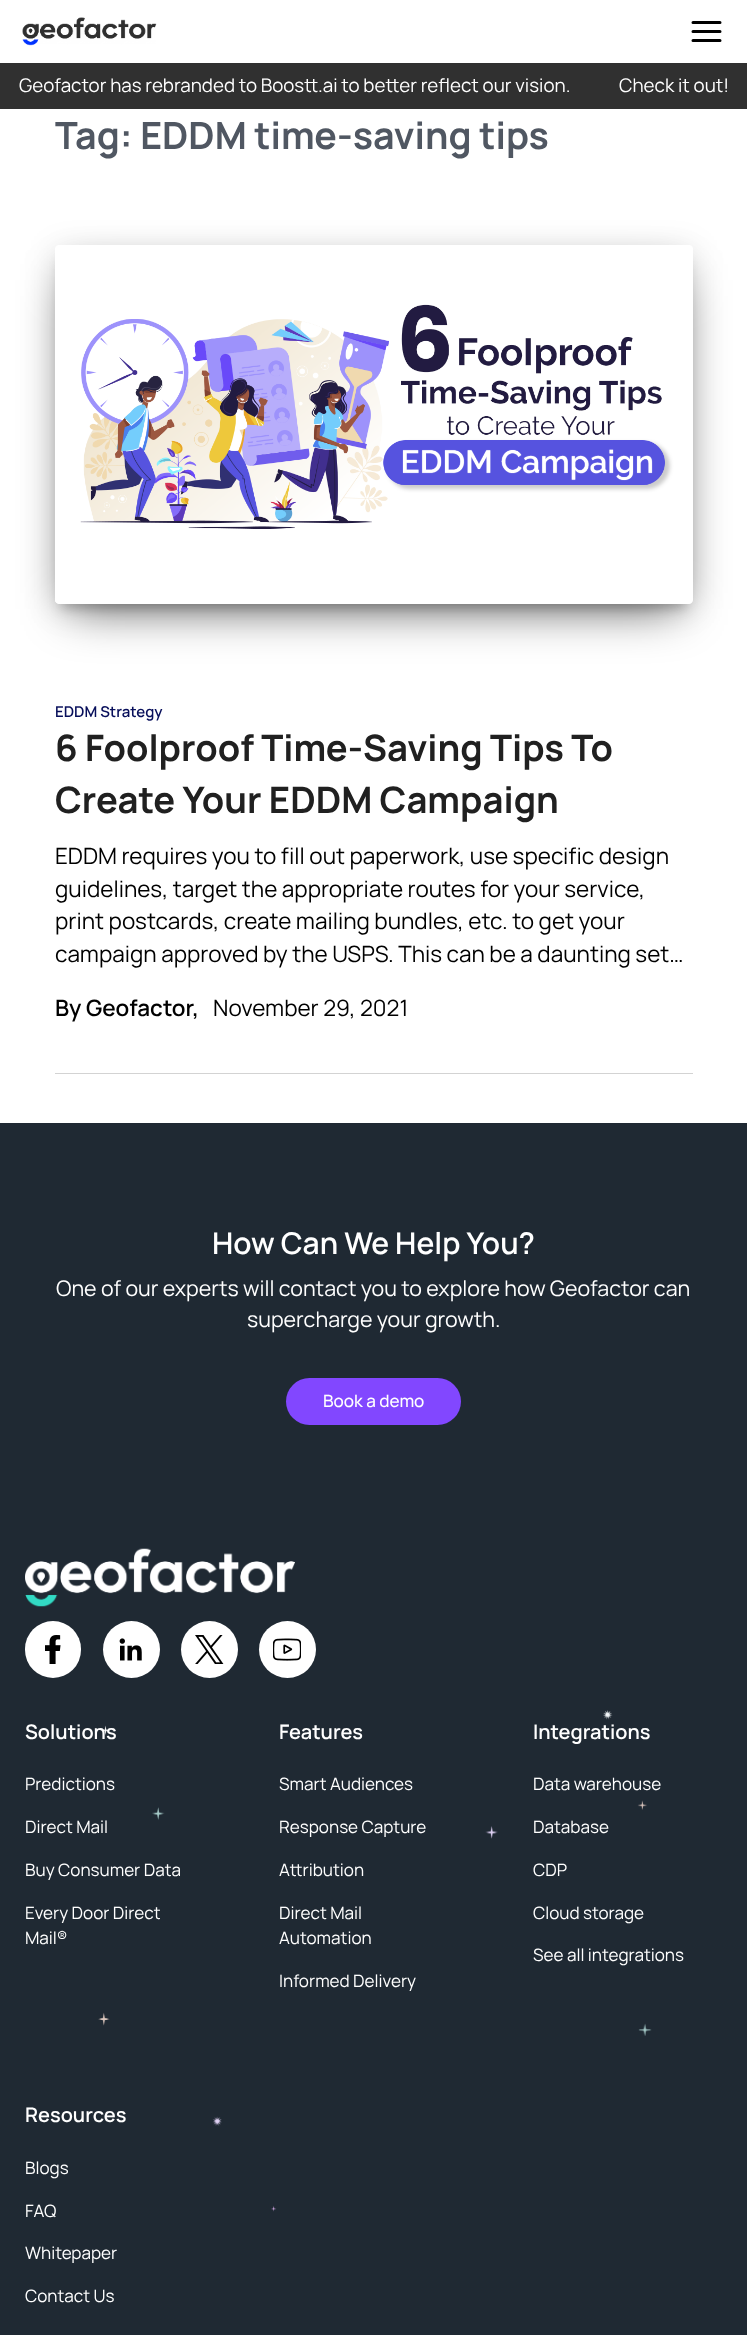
async function draw(canvas) {
	canvas.width = 747;
	canvas.height = 2335;
	const c = canvas.getContext('2d');
	c.miterLimit = 4;
	c.fontKerning = 'normal';
	async function loadImage(src) {
		const img = new Image();
		img.src = src;
		await img.decode();
		return img;
	}

	c.fillStyle = '#fff';
	c.fillRect(0, 0, 747, 2335);
	c.drawImage(await loadImage('img1.png'), 22, 17, 135, 29);
	c.beginPath();
	c.moveTo(693, 31.5);
	c.lineTo(720, 31.5);
	c.moveTo(693, 22.5);
	c.lineTo(720, 22.5);
	c.moveTo(693, 40.5);
	c.lineTo(720, 40.5);
	c.strokeStyle = '#000';
	c.lineWidth = 3;
	c.lineCap = 'round';
	c.lineJoin = 'round';
	c.stroke();
	c.fillStyle = '#303030';
	c.fillRect(0, 63, 747, 46);
	c.font = '18.75px Manrope';
	c.fillStyle = '#fff';
	c.fillText('Geofactor has rebranded to Boostt.ai to better reflect our vision.', 19, 92);
	c.fillText('Check it out!', 619, 92);
	c.font = 'bold 37.5px Manrope';
	c.fillStyle = '#505762';
	c.fillText('Tag: EDDM time-saving tips', 55, 149);
	c.fillStyle = '#d3d3d3';
	c.fillRect(55, 1073, 638, 1);
	c.save();
	c.beginPath();
	c.moveTo(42, 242);
	c.lineTo(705, 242);
	c.lineTo(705, 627);
	c.lineTo(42, 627);
	c.closePath();
	c.moveTo(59, 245);
	c.lineTo(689, 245);
	c.bezierCurveTo(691, 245, 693, 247, 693, 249);
	c.lineTo(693, 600);
	c.bezierCurveTo(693, 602, 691, 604, 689, 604);
	c.lineTo(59, 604);
	c.bezierCurveTo(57, 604, 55, 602, 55, 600);
	c.lineTo(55, 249);
	c.bezierCurveTo(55, 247, 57, 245, 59, 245);
	c.closePath();
	c.clip('evenodd');
	c.fillStyle = '#00000033';
	c.filter = 'blur(6px)';
	c.beginPath();
	c.rect(61, 261, 625, 347);
	c.fill();
	c.filter = 'none';
	c.restore();
	c.save();
	c.beginPath();
	c.moveTo(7, 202);
	c.lineTo(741, 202);
	c.lineTo(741, 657);
	c.lineTo(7, 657);
	c.closePath();
	c.moveTo(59, 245);
	c.lineTo(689, 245);
	c.bezierCurveTo(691, 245, 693, 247, 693, 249);
	c.lineTo(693, 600);
	c.bezierCurveTo(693, 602, 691, 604, 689, 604);
	c.lineTo(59, 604);
	c.bezierCurveTo(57, 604, 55, 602, 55, 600);
	c.lineTo(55, 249);
	c.bezierCurveTo(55, 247, 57, 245, 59, 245);
	c.closePath();
	c.clip('evenodd');
	c.fillStyle = '#0000001f';
	c.filter = 'blur(15.5px)';
	c.beginPath();
	c.roundRect(55, 250, 638, 359, 4);
	c.fill();
	c.filter = 'none';
	c.restore();
	c.save();
	c.beginPath();
	c.moveTo(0, 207);
	c.lineTo(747, 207);
	c.lineTo(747, 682);
	c.lineTo(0, 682);
	c.closePath();
	c.moveTo(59, 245);
	c.lineTo(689, 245);
	c.bezierCurveTo(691, 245, 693, 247, 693, 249);
	c.lineTo(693, 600);
	c.bezierCurveTo(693, 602, 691, 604, 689, 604);
	c.lineTo(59, 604);
	c.bezierCurveTo(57, 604, 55, 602, 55, 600);
	c.lineTo(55, 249);
	c.bezierCurveTo(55, 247, 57, 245, 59, 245);
	c.closePath();
	c.clip('evenodd');
	c.fillStyle = '#0000008f';
	c.filter = 'blur(24px)';
	c.beginPath();
	c.rect(70, 280, 608, 329);
	c.fill();
	c.filter = 'none';
	c.restore();
	c.drawImage(await loadImage('img2.png'), 55, 268, 638, 336);
	c.font = '600 15px Manrope';
	c.fillStyle = '#080f5b';
	c.fillText('EDDM Strategy', 55, 717);
	c.font = 'bold 36.4px Manrope';
	c.fillStyle = '#202020';
	c.fillText('6 Foolproof Time-Saving Tips To', 55, 761);
	c.fillText('Create Your EDDM Campaign', 55, 813);
	c.font = '22.5px Manrope';
	c.fillStyle = '#000';
	for (const [text, x, y] of [
		['EDDM requires you to fill out paperwork, use specific design', 55, 864],
		['guidelines, target the appropriate routes for your service,', 55, 897],
		['print postcards, create mailing bundles, etc. to get your', 55, 929],
		['campaign approved by the USPS. This can be a daunting set…', 55, 962],
	]) {
		c.fillText(text, x, y);
	}
	c.font = '600 22.5px Manrope';
	c.fillText('By Geofactor,', 55, 1016);
	c.font = '22.5px Manrope';
	c.fillText('November 29, 2021', 213, 1016);
	c.fillStyle = '#1f2933';
	c.fillRect(0, 1123, 747, 1212);
	c.drawImage(await loadImage('img3.png'), 98, 1710, 554, 502);
	c.font = '600 30px Manrope';
	c.fillStyle = '#fff';
	c.fillText('How Can We Help You?', 212, 1254);
	c.font = '21.4px Manrope';
	c.fillText('One of our experts will contact you to explore how Geofactor can', 56, 1296);
	c.fillText('supercharge your growth.', 247, 1327);
	c.fillStyle = '#8247ff';
	c.beginPath();
	c.roundRect(286, 1378, 175, 47, 23.5);
	c.fill();
	c.font = '500 17.1px Manrope';
	c.fillStyle = '#fff';
	c.fillText('Book a demo', 323, 1407);
	c.drawImage(await loadImage('img4.png'), 25, 1548, 270, 59);
	c.beginPath();
	c.roundRect(25, 1621, 56, 57, 28);
	c.fill();
	c.drawImage(await loadImage('img5.png'), 45, 1635, 16, 29);
	c.beginPath();
	c.arc(131.5, 1649.5, 28.5, 0, 2 * Math.PI);
	c.fill();
	c.drawImage(await loadImage('img6.png'), 119, 1638, 23, 23);
	c.beginPath();
	c.arc(209.5, 1649.5, 28.5, 0, 2 * Math.PI);
	c.fill();
	c.drawImage(await loadImage('img7.png'), 195, 1635, 29, 29);
	c.beginPath();
	c.arc(287.5, 1649.5, 28.5, 0, 2 * Math.PI);
	c.fill();
	c.drawImage(await loadImage('img8.png'), 273, 1638, 28, 23);
	c.font = '600 20px Manrope';
	c.fillText('Solutions', 25, 1739);
	c.font = '17.1px Manrope';
	for (const [text, x, y] of [
		['Predictions', 25, 1790],
		['Direct Mail', 25, 1833],
		['Buy Consumer Data', 25, 1876],
		['Every Door Direct', 25, 1919],
		['Mail®', 25, 1944],
	]) {
		c.fillText(text, x, y);
	}
	c.font = '600 20px Manrope';
	c.fillText('Features', 279, 1739);
	c.font = '17.1px Manrope';
	for (const [text, x, y] of [
		['Smart Audiences', 279, 1790],
		['Response Capture', 279, 1833],
		['Attribution', 279, 1876],
		['Direct Mail', 279, 1919],
		['Automation', 279, 1944],
		['Informed Delivery', 279, 1987],
	]) {
		c.fillText(text, x, y);
	}
	c.font = '600 20px Manrope';
	c.fillText('Integrations', 533, 1739);
	c.font = '17.1px Manrope';
	for (const [text, x, y] of [
		['Data warehouse', 533, 1790],
		['Database', 533, 1833],
		['CDP', 533, 1876],
		['Cloud storage', 533, 1919],
		['See all integrations', 533, 1961],
	]) {
		c.fillText(text, x, y);
	}
	c.font = '600 20px Manrope';
	c.fillText('Resources', 25, 2122);
	c.font = '17.1px Manrope';
	for (const [text, x, y] of [
		['Blogs', 25, 2174],
		['FAQ', 25, 2217],
		['Whitepaper', 25, 2259],
		['Contact Us', 25, 2302],
	]) {
		c.fillText(text, x, y);
	}
}

draw(document.querySelector('canvas'));
